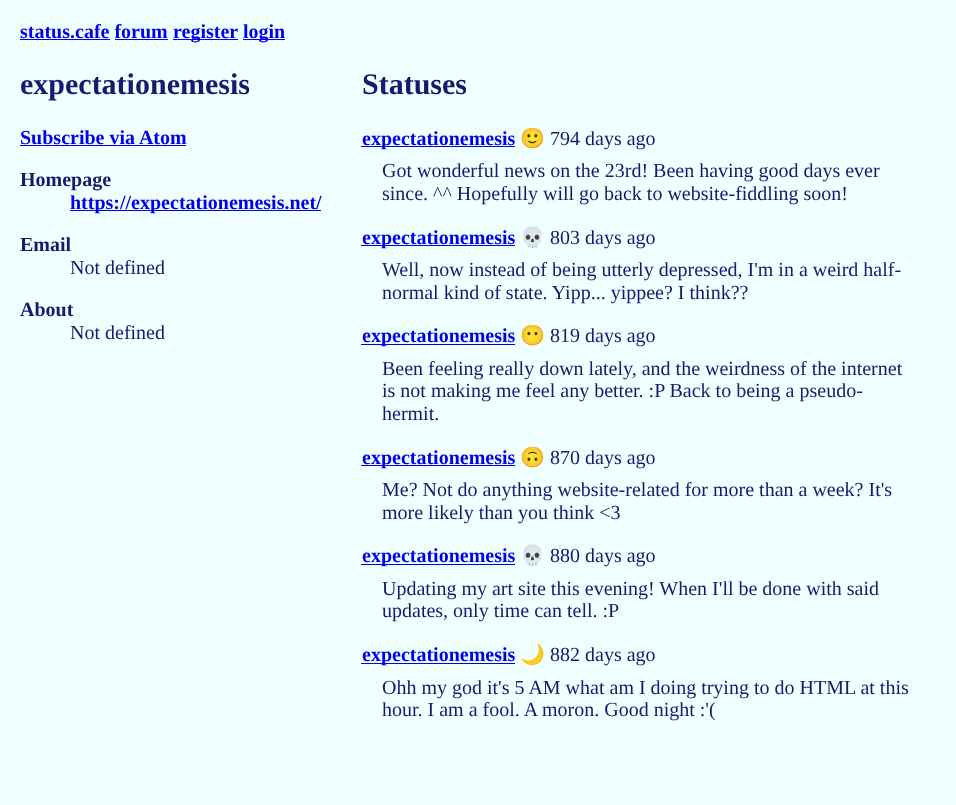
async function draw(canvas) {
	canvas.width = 956;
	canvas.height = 805;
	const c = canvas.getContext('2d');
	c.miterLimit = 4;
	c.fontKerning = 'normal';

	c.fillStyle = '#f0ffff';
	c.fillRect(0, 0, 956, 805);
	c.font = 'bold 20px Liberation Serif';
	c.fillStyle = '#00e';
	c.fillText('status.cafe forum', 20, 38);
	c.fillRect(20, 39, 90, 1);
	c.fillRect(173, 39, 65, 1);
	c.fillText('register', 173, 38);
	c.fillRect(243, 39, 42, 1);
	c.fillText('login', 243, 38);
	c.fillRect(115, 39, 53, 1);
	c.font = 'bold 30px Liberation Serif';
	c.fillStyle = '#191970';
	c.fillText('expectationemesis', 20, 94);
	c.font = 'bold 20px Liberation Serif';
	c.fillStyle = '#00e';
	c.fillText('Subscribe via Atom', 20, 144);
	c.fillRect(20, 145, 166, 1);
	c.fillStyle = '#191970';
	c.fillText('Homepage', 20, 186);
	c.fillStyle = '#00e';
	c.fillRect(70, 210, 251, 1);
	c.fillText('https://expectationemesis.net/', 70, 209);
	c.fillStyle = '#191970';
	c.fillText('Email', 20, 251);
	c.font = '20px Liberation Serif';
	c.fillText('Not defined', 70, 274);
	c.font = 'bold 20px Liberation Serif';
	c.fillText('About', 20, 316);
	c.font = '20px Liberation Serif';
	c.fillText('Not defined', 70, 339);
	c.font = 'bold 30px Liberation Serif';
	c.fillText('Statuses', 362, 94);
	c.fillStyle = '#00e';
	c.fillRect(361, 146, 154, 1);
	c.font = 'bold 20px Liberation Serif';
	c.fillText('expectationemesis', 362, 145);
	c.font = '20px Noto Color Emoji';
	c.fillStyle = '#191970';
	c.fillText('🙂', 520, 145);
	c.font = '20px Liberation Serif';
	for (const [text, x, y] of [
		['794 days ago', 550, 145],
		['Got wonderful news on the 23rd! Been having good days ever', 382, 177],
		['since. ^^ Hopefully will go back to website-fiddling soon!', 382, 200],
	]) {
		c.fillText(text, x, y);
	}
	c.fillStyle = '#00e';
	c.fillRect(361, 245, 154, 1);
	c.font = 'bold 20px Liberation Serif';
	c.fillText('expectationemesis', 362, 244);
	c.font = '20px Noto Color Emoji';
	c.fillStyle = '#191970';
	c.fillText('💀', 520, 244);
	c.font = '20px Liberation Serif';
	for (const [text, x, y] of [
		['803 days ago', 550, 244],
		['Well, now instead of being utterly depressed, I\'m in a weird half-', 382, 276],
		['normal kind of state. Yipp... yippee? I think??', 382, 299],
	]) {
		c.fillText(text, x, y);
	}
	c.fillStyle = '#00e';
	c.fillRect(361, 344, 154, 1);
	c.font = 'bold 20px Liberation Serif';
	c.fillText('expectationemesis', 362, 342);
	c.font = '20px Noto Color Emoji';
	c.fillStyle = '#191970';
	c.fillText('😶', 520, 342);
	c.font = '20px Liberation Serif';
	for (const [text, x, y] of [
		['819 days ago', 550, 342],
		['Been feeling really down lately, and the weirdness of the internet', 382, 375],
		['is not making me feel any better. :P Back to being a pseudo-', 382, 397],
		['hermit.', 382, 420],
	]) {
		c.fillText(text, x, y);
	}
	c.fillStyle = '#00e';
	c.fillRect(361, 465, 154, 1);
	c.font = 'bold 20px Liberation Serif';
	c.fillText('expectationemesis', 362, 464);
	c.font = '20px Noto Color Emoji';
	c.fillStyle = '#191970';
	c.fillText('🙃', 520, 464);
	c.font = '20px Liberation Serif';
	for (const [text, x, y] of [
		['870 days ago', 550, 464],
		['Me? Not do anything website-related for more than a week? It\'s', 382, 496],
		['more likely than you think <3', 382, 519],
	]) {
		c.fillText(text, x, y);
	}
	c.fillStyle = '#00e';
	c.fillRect(361, 564, 154, 1);
	c.font = 'bold 20px Liberation Serif';
	c.fillText('expectationemesis', 362, 562);
	c.font = '20px Noto Color Emoji';
	c.fillStyle = '#191970';
	c.fillText('💀', 520, 562);
	c.font = '20px Liberation Serif';
	for (const [text, x, y] of [
		['880 days ago', 550, 562],
		['Updating my art site this evening! When I\'ll be done with said', 382, 595],
		['updates, only time can tell. :P', 382, 617],
	]) {
		c.fillText(text, x, y);
	}
	c.fillStyle = '#00e';
	c.fillRect(361, 663, 154, 1);
	c.font = 'bold 20px Liberation Serif';
	c.fillText('expectationemesis', 362, 661);
	c.font = '20px Noto Color Emoji';
	c.fillStyle = '#191970';
	c.fillText('🌙', 520, 661);
	c.font = '20px Liberation Serif';
	for (const [text, x, y] of [
		['882 days ago', 550, 661],
		['Ohh my god it\'s 5 AM what am I doing trying to do HTML at this', 382, 694],
		['hour. I am a fool. A moron. Good night :\'(', 382, 716],
	]) {
		c.fillText(text, x, y);
	}
}

draw(document.querySelector('canvas'));
